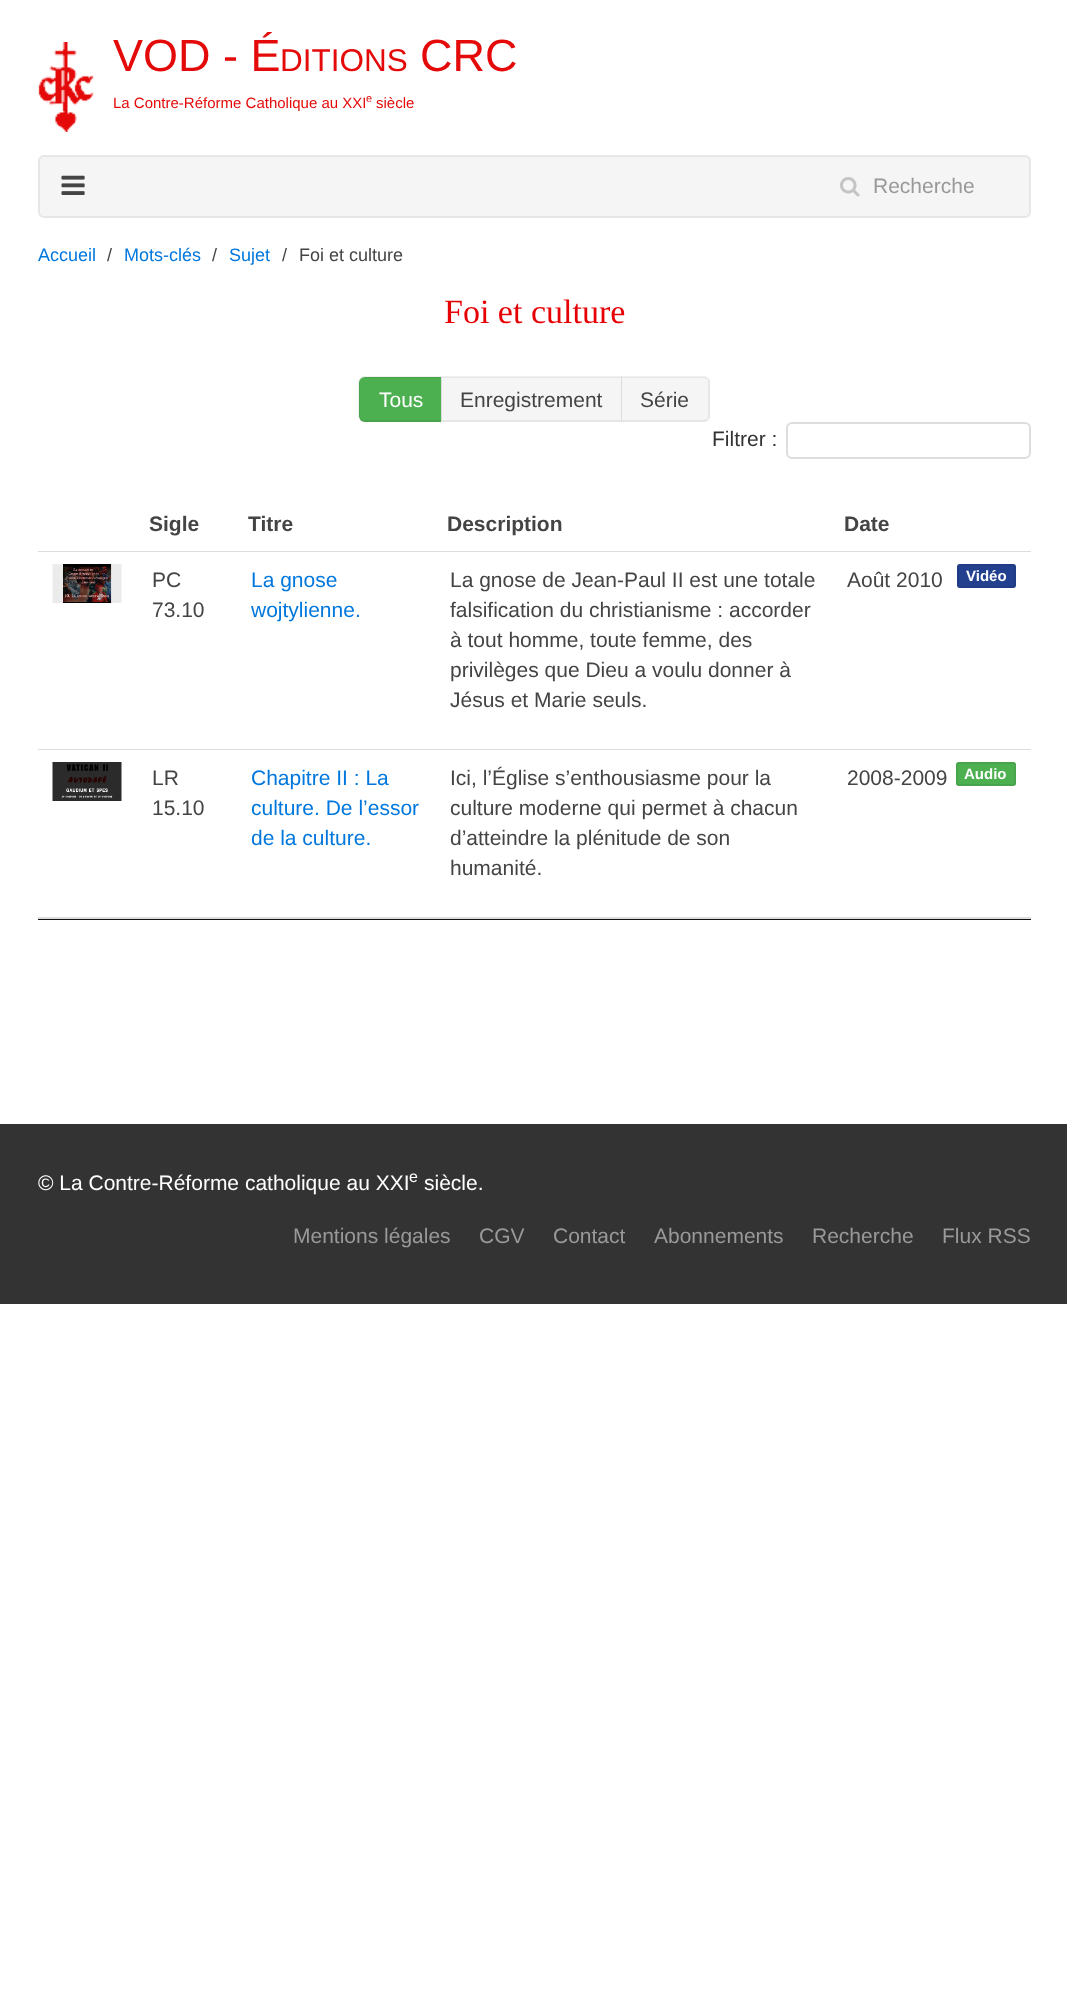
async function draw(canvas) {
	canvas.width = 1067;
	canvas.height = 2010;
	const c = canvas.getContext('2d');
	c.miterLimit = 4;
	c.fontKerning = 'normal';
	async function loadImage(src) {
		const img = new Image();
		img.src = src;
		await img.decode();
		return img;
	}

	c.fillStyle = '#fff';
	c.fillRect(0, 0, 1067, 2010);
	c.drawImage(await loadImage('img1.png'), 38, 42, 56, 90);
	c.font = '45px Liberation Sans';
	c.fillStyle = '#e40a09';
	c.fillText('VOD - É', 113, 71);
	c.font = '31.5px Liberation Sans';
	c.fillText('DITIONS', 280, 71);
	c.font = '45px Liberation Sans';
	c.fillText('CRC', 420, 71);
	c.font = '15px Liberation Sans';
	c.fillText('La Contre-Réforme Catholique au XXI', 113, 108);
	c.font = '11px Liberation Sans';
	c.fillText('e', 366, 102);
	c.font = '15px Liberation Sans';
	c.fillText('siècle', 376, 108);
	c.fillStyle = '#f5f5f5';
	c.beginPath();
	c.roundRect(39, 156, 991, 61, 5);
	c.fill();
	c.strokeStyle = '#e6e6e6';
	c.lineWidth = 2;
	c.stroke();
	c.drawImage(await loadImage('img2.png'), 61, 175, 24, 20);
	c.drawImage(await loadImage('img3.png'), 840, 177, 20, 20);
	c.font = '21px Liberation Sans';
	c.fillStyle = '#999';
	c.fillText('Recherche', 873, 193);
	c.font = '18px Liberation Sans';
	c.fillStyle = '#07d';
	c.fillText('Accueil', 38, 261);
	c.fillStyle = '#444';
	c.fillText('/', 107, 261);
	c.fillStyle = '#07d';
	c.fillText('Mots-clés', 124, 261);
	c.fillStyle = '#444';
	c.fillText('/', 212, 261);
	c.fillStyle = '#07d';
	c.fillText('Sujet', 229, 261);
	c.fillStyle = '#444';
	c.fillText('/', 282, 261);
	c.fillText('Foi et culture', 299, 261);
	c.font = '34px Liberation Serif';
	c.fillStyle = '#e60005';
	c.fillText('Foi et culture', 444, 323);
	c.fillStyle = '#4caf50';
	c.beginPath();
	c.roundRect(359, 377, 84, 45, [6, 0, 0, 6]);
	c.fill();
	c.fillStyle = '#0000000f';
	c.beginPath();
	c.moveTo(364, 378);
	c.lineTo(361, 379);
	c.lineTo(360, 378);
	c.lineTo(362, 376);
	c.lineTo(442, 376);
	c.lineTo(441, 378);
	c.closePath();
	c.fill();
	c.beginPath();
	c.moveTo(362, 422);
	c.lineTo(360, 420);
	c.lineTo(361, 419);
	c.lineTo(364, 420);
	c.lineTo(441, 420);
	c.lineTo(442, 421);
	c.lineTo(442, 422);
	c.closePath();
	c.fill();
	c.beginPath();
	c.moveTo(358, 380);
	c.lineTo(360, 378);
	c.lineTo(361, 379);
	c.bezierCurveTo(360, 380, 360, 381, 360, 382);
	c.lineTo(360, 416);
	c.bezierCurveTo(360, 417, 360, 418, 361, 419);
	c.lineTo(360, 420);
	c.lineTo(358, 418);
	c.closePath();
	c.fill();
	c.font = '21px Liberation Sans';
	c.fillStyle = '#fff';
	c.fillText('Tous', 379, 407);
	c.fillStyle = '#f5f5f5';
	c.fillRect(441, 377, 180, 45);
	c.fillStyle = '#0000000f';
	c.beginPath();
	c.moveTo(441, 376);
	c.lineTo(622, 376);
	c.lineTo(621, 378);
	c.lineTo(442, 378);
	c.closePath();
	c.fill();
	c.beginPath();
	c.moveTo(622, 422);
	c.lineTo(441, 422);
	c.lineTo(442, 420);
	c.lineTo(621, 420);
	c.closePath();
	c.fill();
	c.fillStyle = '#0000001a';
	c.beginPath();
	c.moveTo(441, 422);
	c.lineTo(441, 376);
	c.lineTo(442, 378);
	c.lineTo(442, 420);
	c.closePath();
	c.fill();
	c.fillStyle = '#444';
	c.fillText('Enregistrement', 460, 407);
	c.fillStyle = '#f5f5f5';
	c.beginPath();
	c.roundRect(621, 377, 89, 45, [0, 6, 6, 0]);
	c.fill();
	c.fillStyle = '#0000000f';
	c.beginPath();
	c.moveTo(621, 376);
	c.lineTo(706, 376);
	c.lineTo(708, 378);
	c.lineTo(707, 379);
	c.lineTo(704, 378);
	c.lineTo(622, 378);
	c.closePath();
	c.fill();
	c.beginPath();
	c.moveTo(710, 418);
	c.lineTo(708, 420);
	c.lineTo(707, 419);
	c.bezierCurveTo(708, 418, 708, 417, 708, 416);
	c.lineTo(708, 382);
	c.bezierCurveTo(708, 381, 708, 380, 707, 379);
	c.lineTo(708, 378);
	c.lineTo(710, 380);
	c.closePath();
	c.fill();
	c.beginPath();
	c.moveTo(706, 422);
	c.lineTo(621, 422);
	c.lineTo(622, 420);
	c.lineTo(704, 420);
	c.lineTo(707, 419);
	c.lineTo(708, 420);
	c.closePath();
	c.fill();
	c.fillStyle = '#0000001a';
	c.beginPath();
	c.moveTo(622, 378);
	c.lineTo(621, 376);
	c.lineTo(621, 422);
	c.lineTo(622, 420);
	c.closePath();
	c.fill();
	c.fillStyle = '#444';
	c.fillText('Série', 640, 407);
	c.fillStyle = '#333';
	c.fillText('Filtrer :', 712, 446);
	c.beginPath();
	c.roundRect(787, 423, 243, 35, 5);
	c.strokeStyle = '#ddd';
	c.stroke();
	c.fillStyle = '#111';
	c.fillRect(38, 919, 993, 1);
	c.font = 'bold 21px Liberation Sans';
	c.fillStyle = '#444';
	for (const [text, x, y] of [
		['Sigle', 149, 531],
		['Titre', 248, 531],
		['Description', 447, 531],
		['Date', 844, 531],
	]) {
		c.fillText(text, x, y);
	}
	c.fillStyle = '#ddd';
	c.fillRect(38, 551, 993, 1);
	c.fillRect(38, 749, 993, 1);
	c.drawImage(await loadImage('img4.png'), 52, 564, 70, 39);
	c.font = '21px Liberation Sans';
	c.fillStyle = '#444';
	c.fillText('PC', 152, 587);
	c.fillText('73.10', 152, 617);
	c.fillStyle = '#07d';
	c.fillText('La gnose', 251, 587);
	c.fillText('wojtylienne.', 251, 617);
	c.fillStyle = '#444';
	for (const [text, x, y] of [
		['La gnose de Jean-Paul II est une totale', 450, 587],
		['falsification du christianisme : accorder', 450, 617],
		['à tout homme, toute femme, des', 450, 647],
		['privilèges que Dieu a voulu donner à', 450, 677],
		['Jésus et Marie seuls.', 450, 707],
		['Août 2010', 847, 587],
	]) {
		c.fillText(text, x, y);
	}
	c.fillStyle = '#23408f';
	c.beginPath();
	c.roundRect(957, 564, 59, 24, 3);
	c.fill();
	c.strokeStyle = '#0000000f';
	c.strokeRect(958, 565, 57, 22);
	c.font = 'bold 15px Liberation Sans';
	c.fillStyle = '#fff';
	c.fillText('Vidéo', 966, 581);
	c.fillStyle = '#ddd';
	c.fillRect(38, 917, 993, 2);
	c.drawImage(await loadImage('img5.png'), 52, 762, 70, 39);
	c.font = '21px Liberation Sans';
	c.fillStyle = '#444';
	c.fillText('LR', 152, 785);
	c.fillText('15.10', 152, 815);
	c.fillStyle = '#07d';
	for (const [text, x, y] of [
		['Chapitre II : La', 251, 785],
		['culture. De l’essor', 251, 815],
		['de la culture.', 251, 845],
	]) {
		c.fillText(text, x, y);
	}
	c.fillStyle = '#444';
	for (const [text, x, y] of [
		['Ici, l’Église s’enthousiasme pour la', 450, 785],
		['culture moderne qui permet à chacun', 450, 815],
		['d’atteindre la plénitude de son', 450, 845],
		['humanité.', 450, 875],
		['2008-2009', 847, 785],
	]) {
		c.fillText(text, x, y);
	}
	c.fillStyle = '#4caf50';
	c.beginPath();
	c.roundRect(956, 762, 60, 24, 3);
	c.fill();
	c.strokeRect(957, 763, 58, 22);
	c.font = 'bold 15px Liberation Sans';
	c.fillStyle = '#fff';
	c.fillText('Audio', 964, 779);
	c.fillStyle = '#333';
	c.fillRect(0, 1124, 1067, 180);
	c.font = '21px Liberation Sans';
	c.fillStyle = '#fff';
	c.fillText('© La Contre-Réforme catholique au XXI', 38, 1190);
	c.font = '16px Liberation Sans';
	c.fillText('e', 409, 1182);
	c.font = '21px Liberation Sans';
	c.fillText('siècle.', 424, 1190);
	c.fillStyle = '#999';
	for (const [text, x, y] of [
		['Mentions légales', 293, 1243],
		['CGV', 479, 1243],
		['Contact', 553, 1243],
		['Abonnements', 654, 1243],
		['Recherche', 812, 1243],
		['Flux RSS', 942, 1243],
	]) {
		c.fillText(text, x, y);
	}
}

draw(document.querySelector('canvas'));
